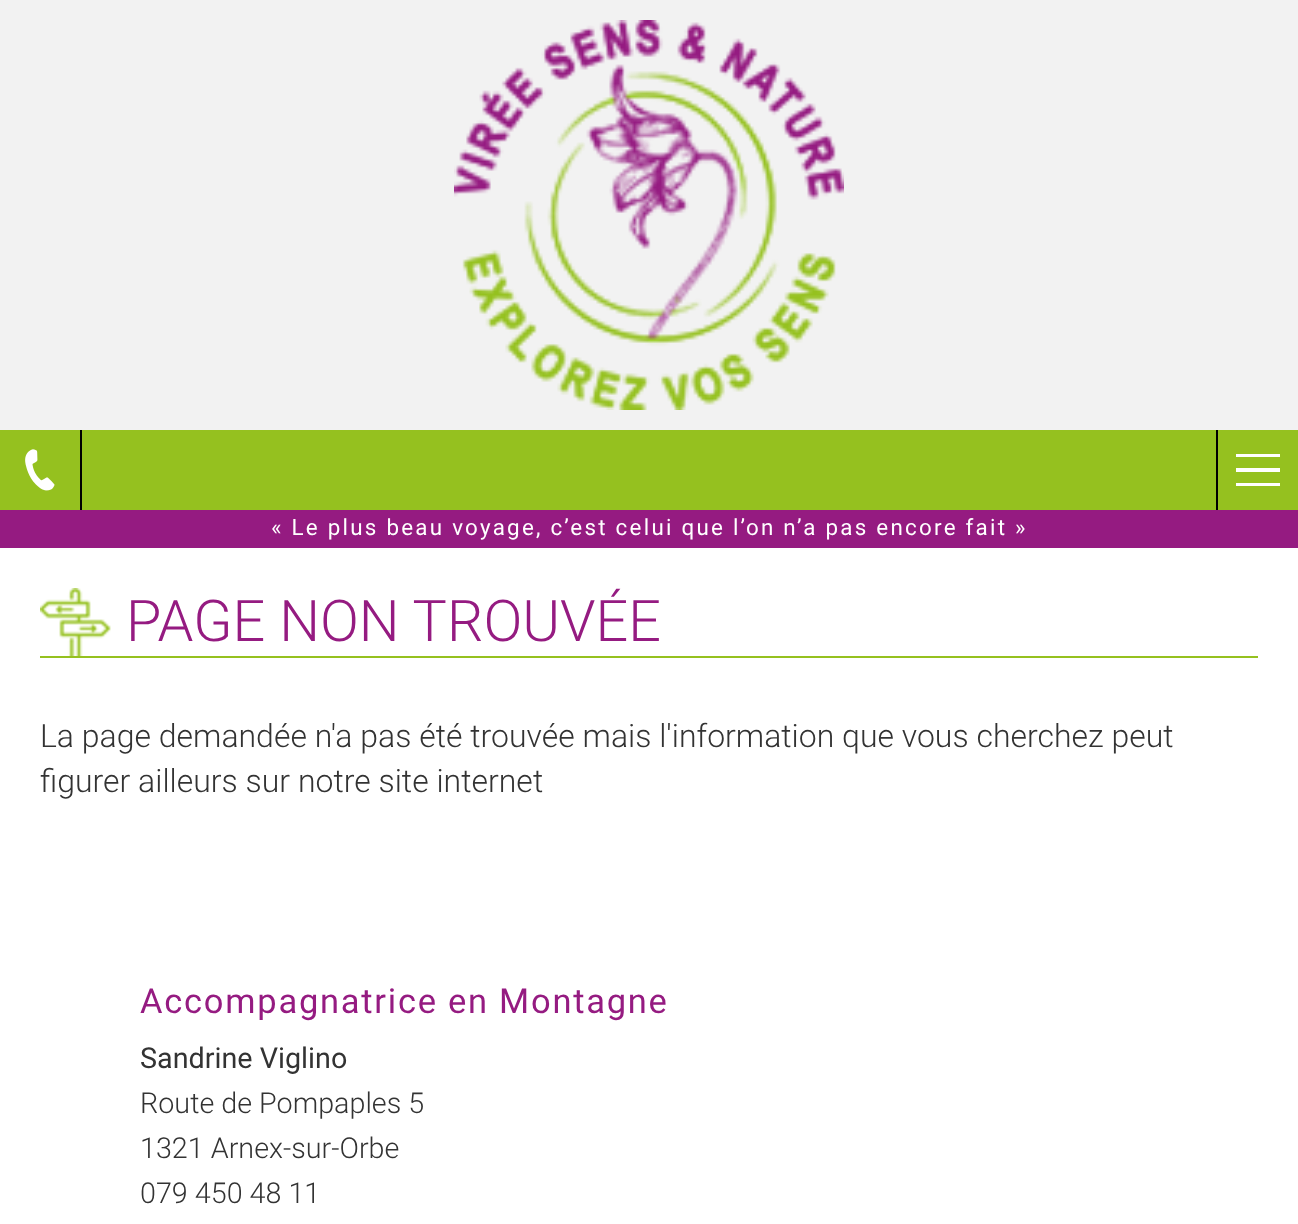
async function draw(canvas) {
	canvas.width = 1298;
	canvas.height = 1224;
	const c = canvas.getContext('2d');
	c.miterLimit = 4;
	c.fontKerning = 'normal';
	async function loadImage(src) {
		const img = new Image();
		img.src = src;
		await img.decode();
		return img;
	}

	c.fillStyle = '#f2f2f2';
	c.fillRect(0, 0, 1298, 1224);
	c.drawImage(await loadImage('img1.png'), 454, 20, 390, 390);
	c.fillStyle = '#95c11f';
	c.fillRect(0, 430, 1298, 80);
	c.fillStyle = '#000';
	c.fillRect(80, 430, 2, 80);
	c.drawImage(await loadImage('img2.png'), 25, 449, 30, 42);
	for (const [x, y, w, h, color] of [
		[1216, 430, 2, 80, '#000'],
		[1236, 454, 44, 3, '#fff'],
		[1236, 468, 44, 4, '#fff'],
		[1236, 483, 44, 3, '#fff'],
		[0, 510, 1298, 38, '#951b81'],
	]) {
		c.fillStyle = color;
		c.fillRect(x, y, w, h);
	}
	c.letterSpacing = '2.25px';
	c.font = '22.4px Roboto';
	c.fillStyle = '#fff';
	c.fillText('« Le plus beau voyage, c’est celui que l’on n’a pas encore fait »', 271, 535);
	c.fillRect(0, 548, 1298, 676);
	c.drawImage(await loadImage('img3.png'), 40, 588, 71, 68);
	c.fillStyle = '#95c11f';
	c.fillRect(40, 656, 1218, 2);
	c.letterSpacing = '0px';
	c.font = '300 57.5px Roboto';
	c.fillStyle = '#951b81';
	c.fillText('PAGE NON TROUVÉE', 126, 641);
	c.font = '300 32px Roboto';
	c.fillStyle = '#333';
	c.fillText('La page demandée n\'a pas été trouvée mais l\'information que vous cherchez peut', 40, 747);
	c.fillText('figurer ailleurs sur notre site internet', 40, 792);
	c.letterSpacing = '1.75px';
	c.font = '34.5px Roboto';
	c.fillStyle = '#951b81';
	c.fillText('Accompagnatrice en Montagne', 140, 1013);
	c.letterSpacing = '0px';
	c.font = '28.75px Roboto';
	c.fillStyle = '#333';
	c.fillText('Sandrine Viglino', 140, 1068);
	c.font = '300 28.75px Roboto';
	for (const [text, x, y] of [
		['Route de Pompaples 5', 140, 1113],
		['1321 Arnex-sur-Orbe', 140, 1158],
		['079 450 48 11', 140, 1203],
	]) {
		c.fillText(text, x, y);
	}
}

draw(document.querySelector('canvas'));
